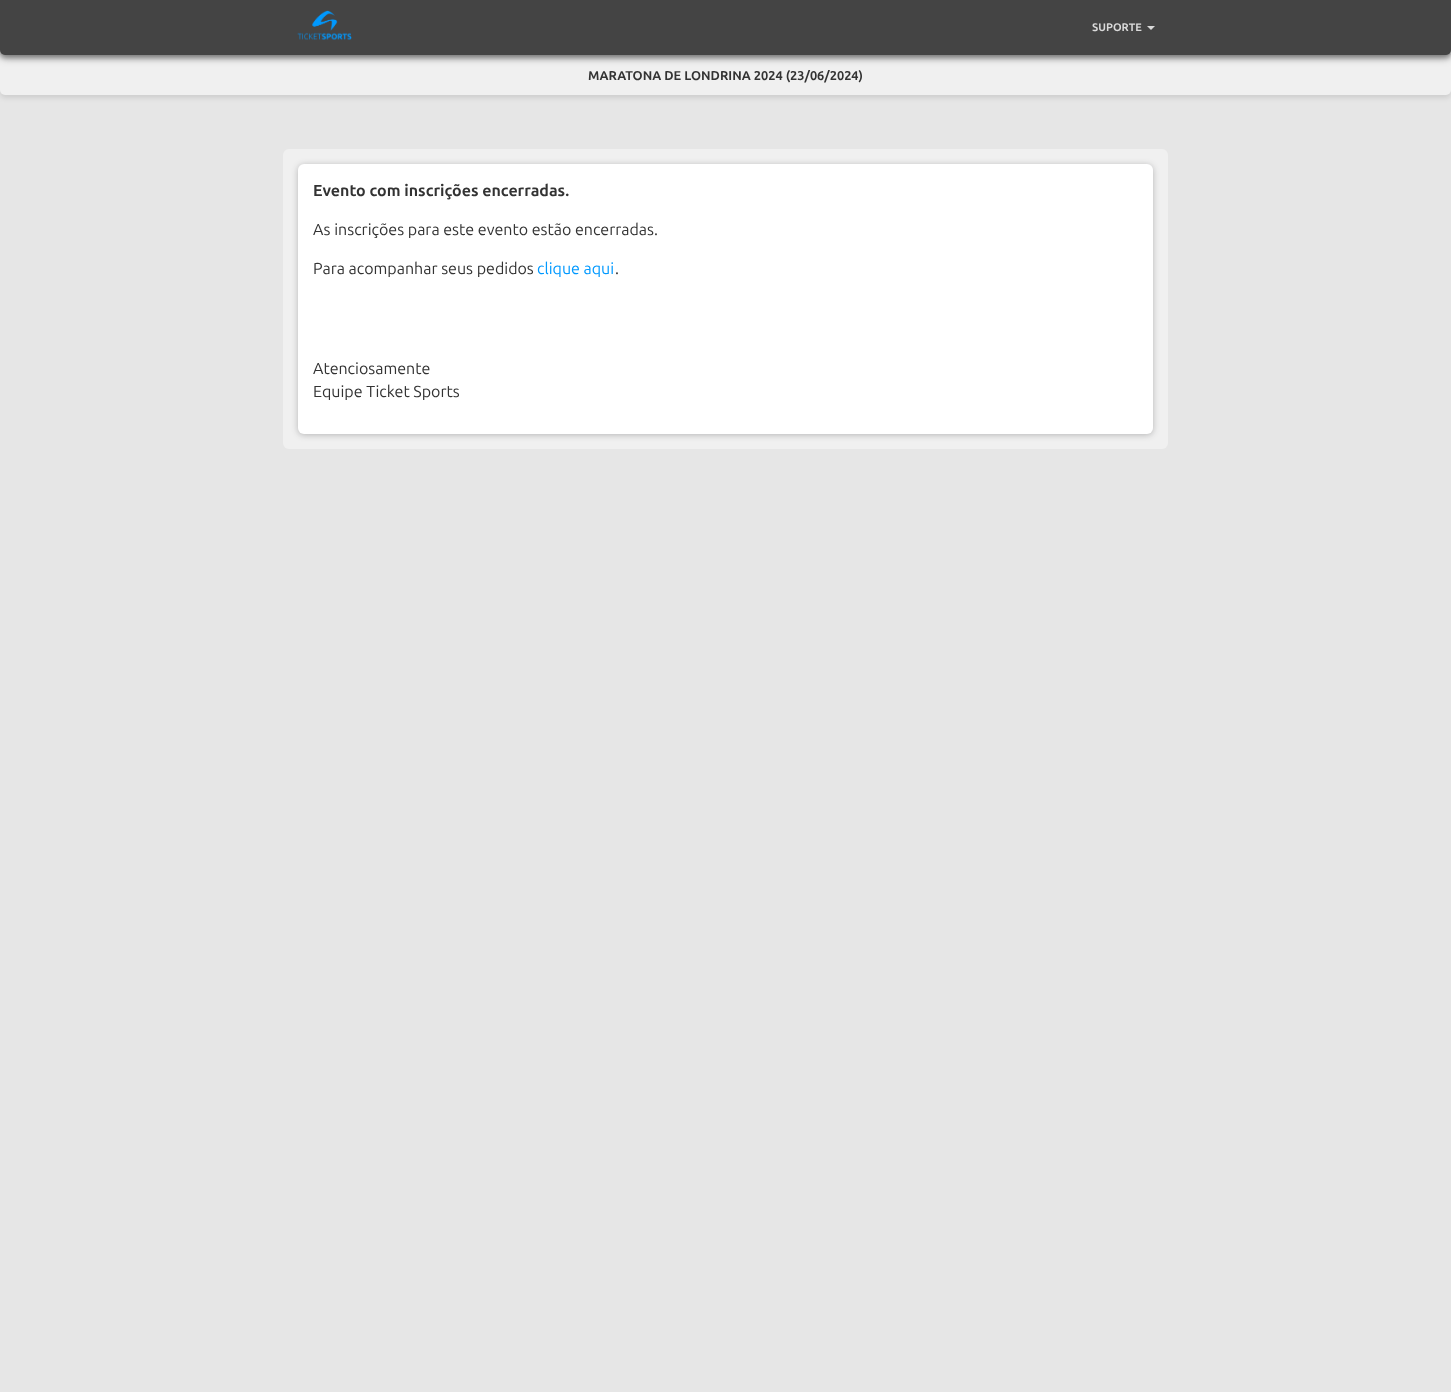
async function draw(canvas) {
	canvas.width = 1451;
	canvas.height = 1392;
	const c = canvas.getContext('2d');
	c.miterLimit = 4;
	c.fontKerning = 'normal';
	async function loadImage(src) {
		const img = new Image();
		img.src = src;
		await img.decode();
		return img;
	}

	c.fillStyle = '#e6e6e6';
	c.fillRect(0, 0, 1451, 1392);
	c.fillStyle = '#0000001a';
	c.filter = 'blur(2.5px)';
	c.beginPath();
	c.roundRect(0, 58, 1451, 40, 5);
	c.fill();
	c.filter = 'none';
	c.fillStyle = '#f0f0f0';
	c.beginPath();
	c.roundRect(0, 55, 1451, 40, [0, 0, 5, 5]);
	c.fill();
	c.fillStyle = '#00000054';
	c.filter = 'blur(5px)';
	c.beginPath();
	c.roundRect(0, 2, 1451, 55, 5);
	c.fill();
	c.filter = 'none';
	c.filter = 'blur(2.5px)';
	c.beginPath();
	c.roundRect(0, 3, 1451, 55, 5);
	c.fill();
	c.filter = 'none';
	c.fillStyle = '#444';
	c.beginPath();
	c.roundRect(0, 0, 1451, 55, [0, 0, 5, 5]);
	c.fill();
	c.drawImage(await loadImage('img1.png'), 297, 10, 55, 30);
	c.font = 'bold 11px Ubuntu';
	c.fillStyle = '#dadada';
	c.fillText('SUPORTE', 1092, 31);
	c.beginPath();
	c.moveTo(1147, 26);
	c.lineTo(1155, 26);
	c.lineTo(1151, 30);
	c.closePath();
	c.fill();
	c.font = 'bold 12.8px Ubuntu';
	c.fillStyle = '#333';
	c.fillText('MARATONA DE LONDRINA 2024 (23/06/2024)', 588, 80);
	c.fillStyle = '#f0f0f0';
	c.beginPath();
	c.roundRect(283, 149, 885, 300, 6);
	c.fill();
	c.fillStyle = '#20212447';
	c.filter = 'blur(3px)';
	c.beginPath();
	c.roundRect(298, 165, 855, 270, 6);
	c.fill();
	c.filter = 'none';
	c.fillStyle = '#fff';
	c.beginPath();
	c.roundRect(298, 164, 855, 270, 6);
	c.fill();
	c.font = 'bold 16px Ubuntu';
	c.fillStyle = '#333';
	c.fillText('Evento com inscrições encerradas.', 313, 196);
	c.font = '16px Ubuntu';
	c.fillText('As inscrições para este evento estão encerradas.', 313, 235);
	c.fillText('Para acompanhar seus pedidos', 313, 274);
	c.fillStyle = '#09f';
	c.fillText('clique aqui', 537, 274);
	c.fillStyle = '#333';
	for (const [text, x, y] of [
		['.', 615, 274],
		['Atenciosamente', 313, 374],
		['Equipe Ticket Sports', 313, 397],
	]) {
		c.fillText(text, x, y);
	}
}

draw(document.querySelector('canvas'));
